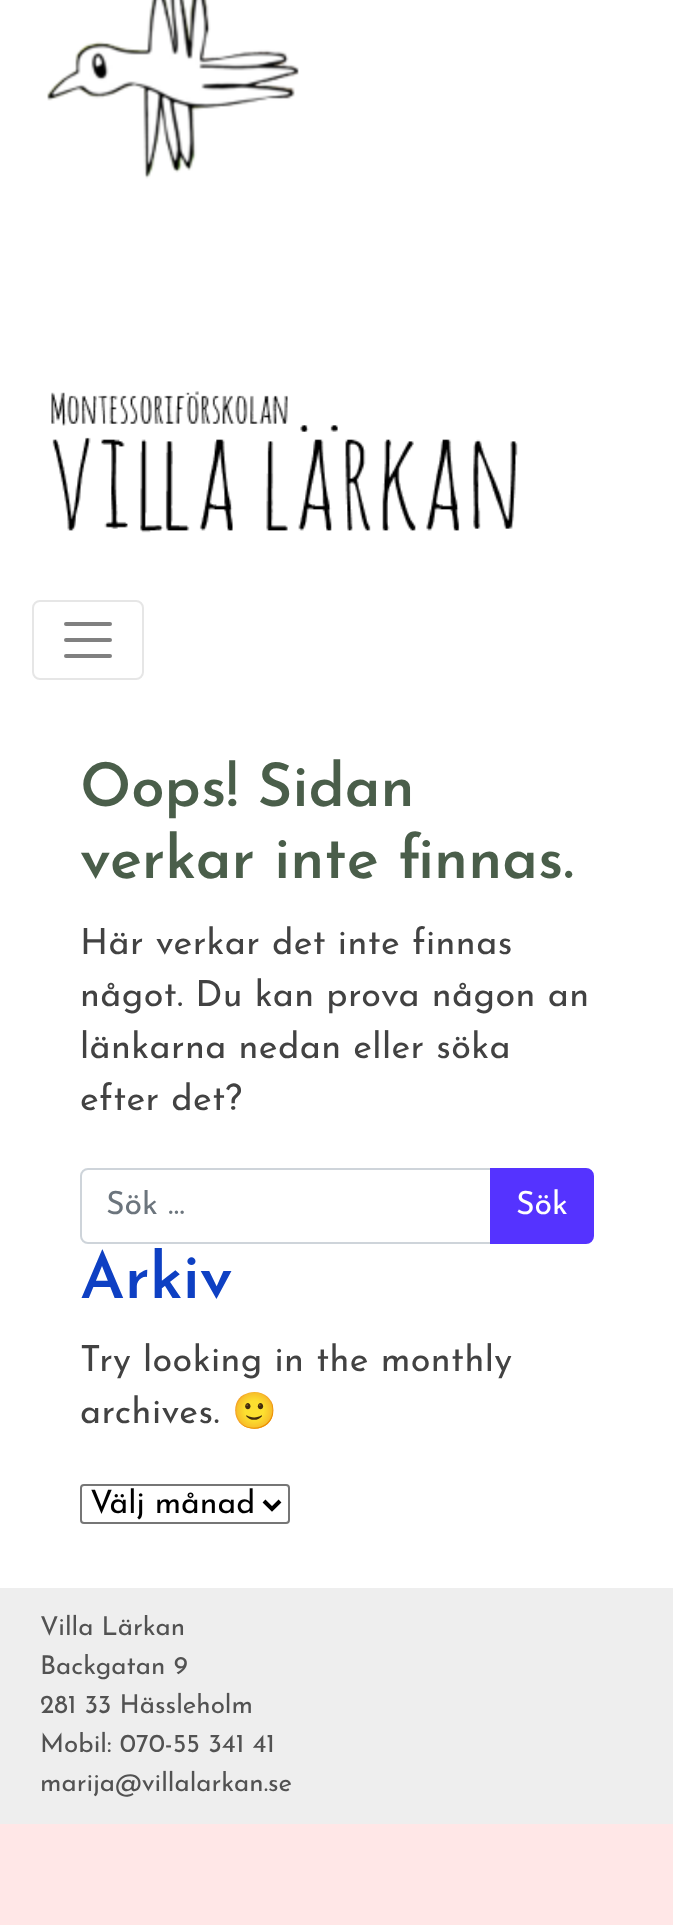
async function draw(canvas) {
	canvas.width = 673;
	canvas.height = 1925;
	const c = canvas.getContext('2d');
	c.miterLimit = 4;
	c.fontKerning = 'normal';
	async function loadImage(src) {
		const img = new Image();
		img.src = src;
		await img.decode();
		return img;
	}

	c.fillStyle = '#ffe7e7';
	c.fillRect(0, 0, 673, 1925);
	c.fillStyle = '#fff';
	c.fillRect(0, 0, 673, 1588);
	c.drawImage(await loadImage('img1.png'), 47, 0, 252, 179);
	c.drawImage(await loadImage('img2.png'), 51, 391, 467, 142);
	c.beginPath();
	c.roundRect(33, 601, 110, 78, 7);
	c.strokeStyle = '#e6e6e6';
	c.lineWidth = 2;
	c.stroke();
	c.beginPath();
	c.moveTo(66, 624);
	c.lineTo(110, 624);
	c.moveTo(66, 640);
	c.lineTo(110, 640);
	c.moveTo(66, 656);
	c.lineTo(110, 656);
	c.strokeStyle = '#808080';
	c.lineWidth = 4;
	c.lineCap = 'round';
	c.stroke();
	c.font = '600 60px Josefin Sans';
	c.fillStyle = '#4a5e4a';
	c.fillText('Oops! Sidan', 80, 806);
	c.fillText('verkar inte finnas.', 80, 878);
	c.letterSpacing = '0.4px';
	c.font = '36px Josefin Sans';
	c.fillStyle = '#424242';
	for (const [text, x, y] of [
		['Här verkar det inte finnas', 80, 954],
		['något. Du kan prova någon an', 80, 1006],
		['länkarna nedan eller söka', 80, 1058],
		['efter det?', 80, 1110],
	]) {
		c.fillText(text, x, y);
	}
	c.beginPath();
	c.roundRect(81, 1169, 410, 74, [7, 0, 0, 7]);
	c.strokeStyle = '#ced4da';
	c.lineWidth = 2;
	c.stroke();
	c.save();
	c.beginPath();
	c.rect(106, 1190, 360, 32);
	c.clip();
	c.letterSpacing = '0px';
	c.font = '32px Josefin Sans';
	c.fillStyle = '#6c757d';
	c.fillText('Sök …', 106, 1214);
	c.restore();
	c.fillStyle = '#53f';
	c.beginPath();
	c.roundRect(491, 1169, 102, 74, [0, 7, 7, 0]);
	c.fill();
	c.strokeStyle = '#53f';
	c.stroke();
	c.letterSpacing = '0px';
	c.font = '32px Josefin Sans';
	c.fillStyle = '#fff';
	c.fillText('Sök', 516, 1214);
	c.font = '600 64px Josefin Sans';
	c.fillStyle = '#0e40c3';
	c.fillText('Arkiv', 80, 1298);
	c.letterSpacing = '0.4px';
	c.font = '36px Josefin Sans';
	c.fillStyle = '#424242';
	c.fillText('Try looking in the monthly', 80, 1371);
	c.fillText('archives.', 80, 1423);
	c.font = '36px Noto Color Emoji';
	c.fillText('🙂', 232, 1423);
	c.beginPath();
	c.roundRect(81, 1485, 208, 38, 3);
	c.strokeStyle = '#767676';
	c.stroke();
	c.beginPath();
	c.moveTo(264, 1501);
	c.lineTo(272, 1509);
	c.lineTo(280, 1501);
	c.strokeStyle = '#000';
	c.lineWidth = 4;
	c.lineCap = 'butt';
	c.stroke();
	c.letterSpacing = '0px';
	c.font = '32px Josefin Sans';
	c.fillStyle = '#000';
	c.fillText('Välj månad', 90, 1513);
	c.fillStyle = '#eee';
	c.fillRect(0, 1588, 673, 236);
	c.font = '26px Josefin Sans';
	c.fillStyle = '#525252';
	for (const [text, x, y] of [
		['Villa Lärkan', 40, 1635],
		['Backgatan 9', 40, 1674],
		['281 33 Hässleholm', 40, 1713],
		['Mobil: 070-55 341 41', 40, 1752],
		['marija@villalarkan.se', 40, 1791],
	]) {
		c.fillText(text, x, y);
	}
}

draw(document.querySelector('canvas'));
